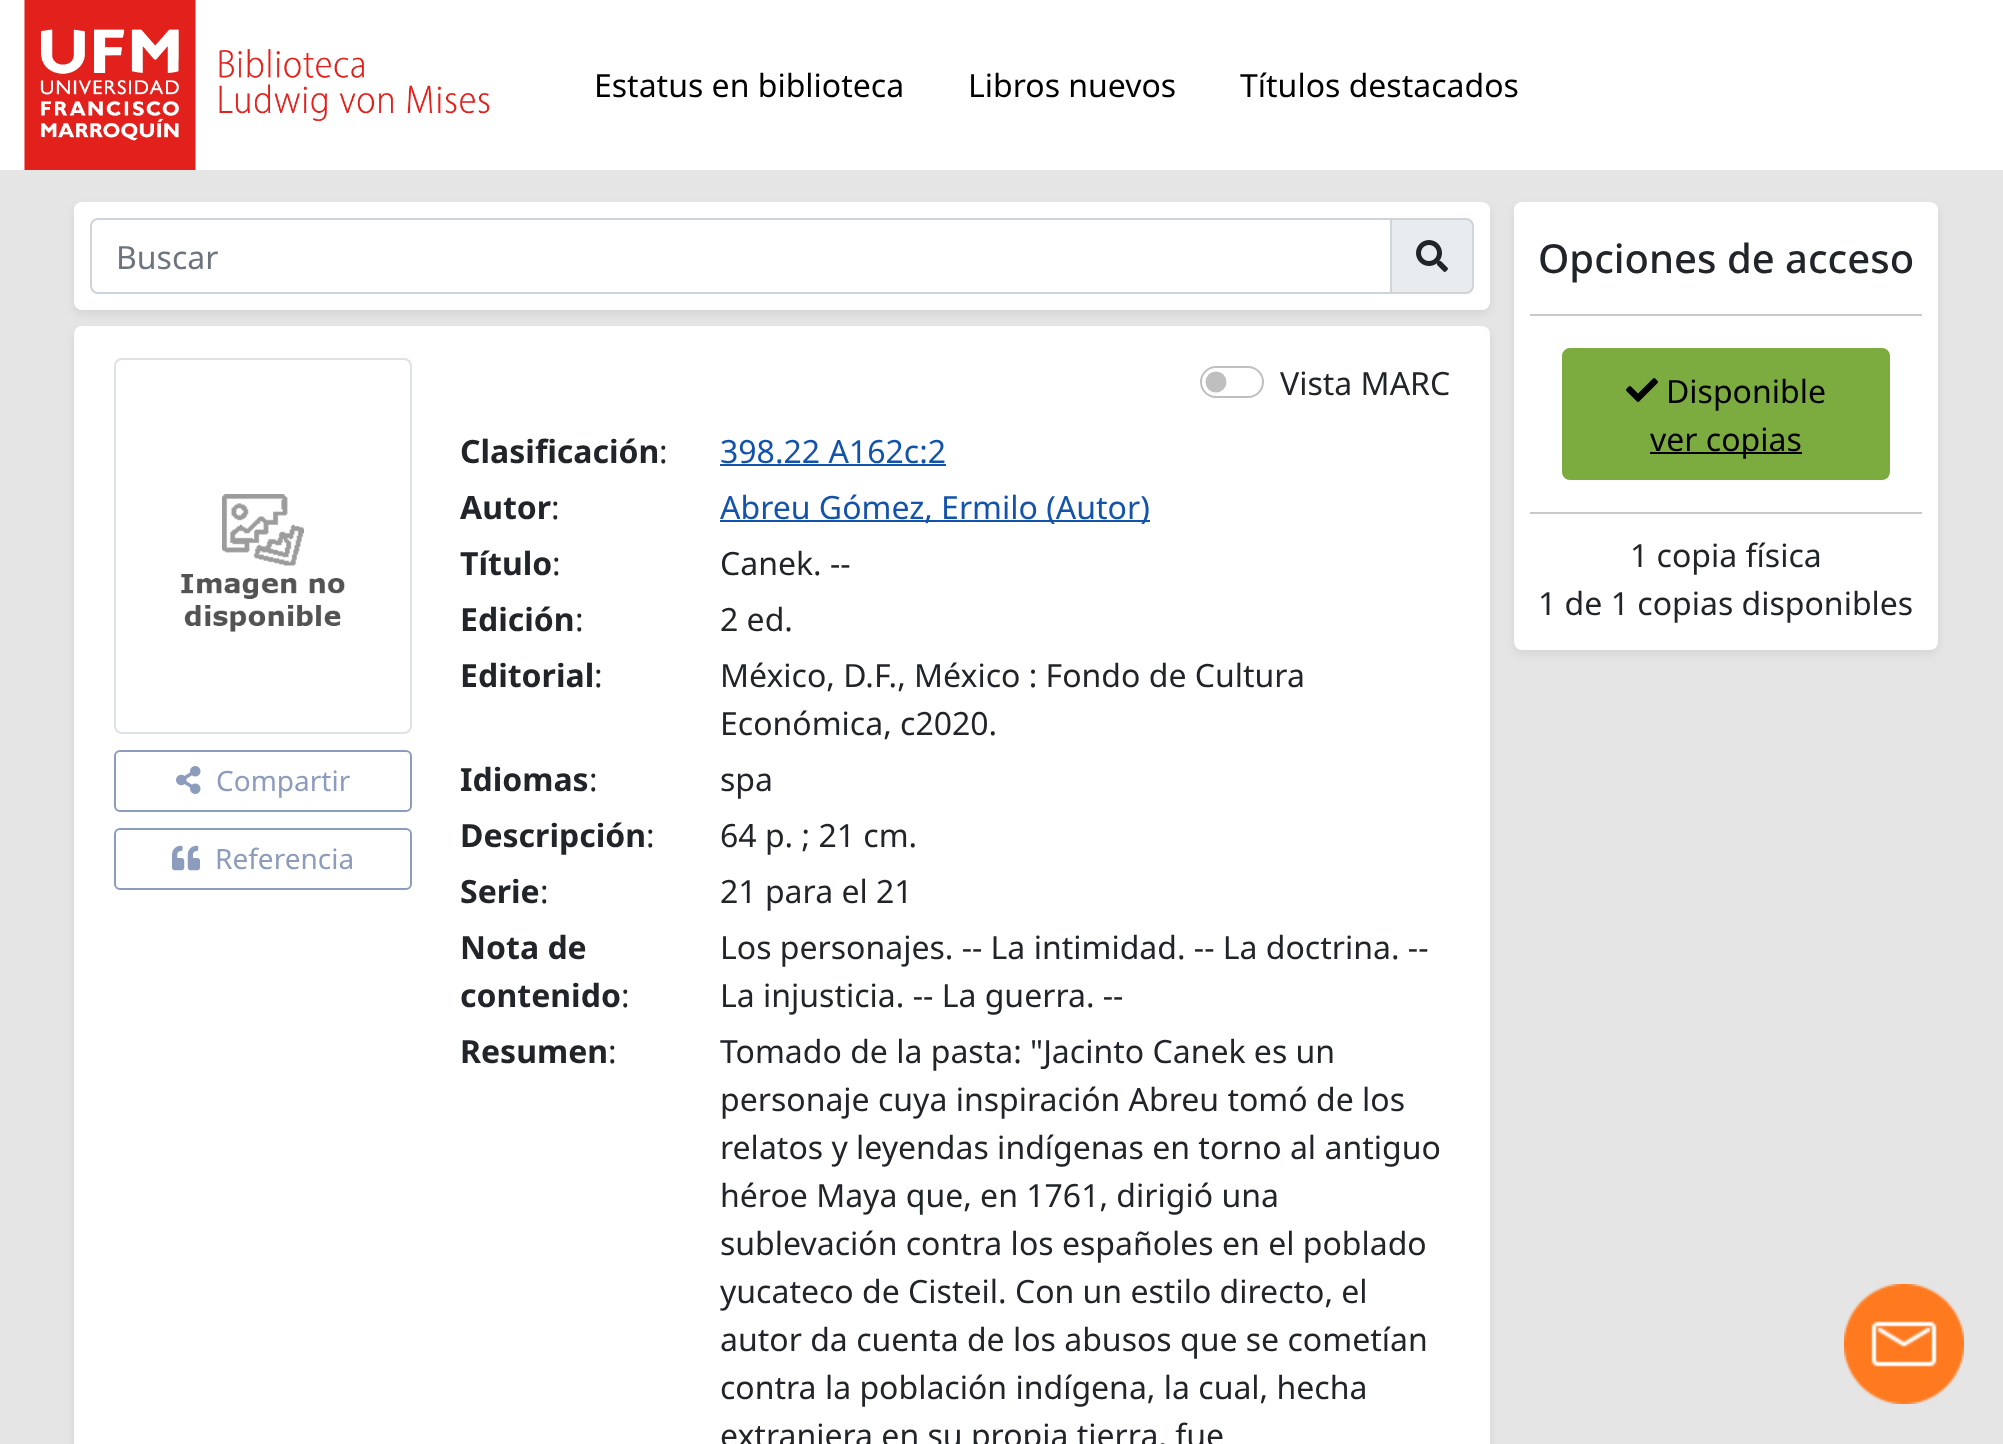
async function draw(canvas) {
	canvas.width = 2003;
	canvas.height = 1444;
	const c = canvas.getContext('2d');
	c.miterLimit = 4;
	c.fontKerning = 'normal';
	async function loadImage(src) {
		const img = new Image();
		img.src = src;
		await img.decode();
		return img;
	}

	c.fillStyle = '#e5e5e5';
	c.fillRect(0, 0, 2003, 1444);
	c.fillStyle = '#fff';
	c.fillRect(0, 0, 2003, 170);
	c.drawImage(await loadImage('img1.png'), 24, 0, 466, 170);
	c.font = '32px Noto Sans';
	c.fillStyle = '#000';
	for (const [text, x, y] of [
		['Estatus en biblioteca', 594, 97],
		['Libros nuevos', 968, 97],
		['Títulos destacados', 1240, 97],
	]) {
		c.fillText(text, x, y);
	}
	c.fillStyle = '#00000012';
	c.filter = 'blur(4px)';
	c.beginPath();
	c.roundRect(74, 206, 1416, 108, 8);
	c.fill();
	c.filter = 'none';
	c.fillStyle = '#fff';
	c.beginPath();
	c.roundRect(74, 202, 1416, 108, 8);
	c.fill();
	c.fillStyle = '#e9ecef';
	c.beginPath();
	c.roundRect(1391, 219, 82, 74, [0, 7, 7, 0]);
	c.fill();
	c.strokeStyle = '#ced4da';
	c.lineWidth = 2;
	c.stroke();
	c.beginPath();
	c.roundRect(91, 219, 1300, 74, [7, 0, 0, 7]);
	c.stroke();
	c.fillStyle = '#6c757d';
	c.fillText('Buscar', 116, 269);
	c.drawImage(await loadImage('img2.png'), 1416, 240, 32, 32);
	c.fillStyle = '#00000012';
	c.filter = 'blur(4px)';
	c.beginPath();
	c.roundRect(74, 330, 1416, 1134, 8);
	c.fill();
	c.filter = 'none';
	c.fillStyle = '#fff';
	c.beginPath();
	c.roundRect(74, 326, 1416, 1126, 8);
	c.fill();
	c.beginPath();
	c.roundRect(115, 359, 296, 374, 7);
	c.strokeStyle = '#dee2e6';
	c.stroke();
	c.drawImage(await loadImage('img3.png'), 181, 494, 164, 138);
	c.beginPath();
	c.roundRect(115, 751, 296, 60, 5);
	c.strokeStyle = '#8c9cbd';
	c.stroke();
	c.drawImage(await loadImage('img4.png'), 176, 766, 25, 28);
	c.font = '28px Noto Sans';
	c.fillStyle = '#8c9cbd';
	c.fillText('Compartir', 216, 791);
	c.beginPath();
	c.roundRect(115, 829, 296, 60, 5);
	c.stroke();
	c.drawImage(await loadImage('img5.png'), 172, 845, 28, 26);
	c.fillText('Referencia', 215, 869);
	c.fillStyle = '#bfbfbf';
	c.beginPath();
	c.arc(1216, 382, 10.5, 0, 2 * Math.PI);
	c.fill();
	c.beginPath();
	c.roundRect(1201, 367, 62, 30, 15);
	c.strokeStyle = '#bfbfbf';
	c.stroke();
	c.font = '32px Noto Sans';
	c.fillStyle = '#212529';
	c.fillText('Vista MARC', 1280, 395);
	c.font = 'bold 32px Noto Sans';
	c.fillText('Clasificación', 460, 463);
	c.font = '32px Noto Sans';
	c.fillText(':', 659, 463);
	c.fillStyle = '#1353ab';
	c.fillText('398.22 A162c:2', 720, 463);
	c.fillRect(720, 464, 226, 2);
	c.font = 'bold 32px Noto Sans';
	c.fillStyle = '#212529';
	c.fillText('Autor', 460, 519);
	c.font = '32px Noto Sans';
	c.fillText(':', 551, 519);
	c.fillStyle = '#1353ab';
	c.fillRect(720, 520, 430, 2);
	c.fillText('Abreu Gómez, Ermilo (Autor)', 720, 519);
	c.font = 'bold 32px Noto Sans';
	c.fillStyle = '#212529';
	c.fillText('Título', 460, 575);
	c.font = '32px Noto Sans';
	c.fillText(':', 552, 575);
	c.fillText('Canek. --', 720, 575);
	c.font = 'bold 32px Noto Sans';
	c.fillText('Edición', 460, 631);
	c.font = '32px Noto Sans';
	c.fillText(':', 575, 631);
	c.fillText('2 ed.', 720, 631);
	c.font = 'bold 32px Noto Sans';
	c.fillText('Editorial', 460, 687);
	c.font = '32px Noto Sans';
	for (const [text, x, y] of [
		[':', 594, 687],
		['México, D.F., México : Fondo de Cultura', 720, 687],
		['Económica, c2020.', 720, 735],
	]) {
		c.fillText(text, x, y);
	}
	c.font = 'bold 32px Noto Sans';
	c.fillText('Idiomas', 460, 791);
	c.font = '32px Noto Sans';
	c.fillText(':', 589, 791);
	c.fillText('spa', 720, 791);
	c.font = 'bold 32px Noto Sans';
	c.fillText('Descripción', 460, 847);
	c.font = '32px Noto Sans';
	c.fillText(':', 646, 847);
	c.fillText('64 p. ; 21 cm.', 720, 847);
	c.font = 'bold 32px Noto Sans';
	c.fillText('Serie', 460, 903);
	c.font = '32px Noto Sans';
	c.fillText(':', 540, 903);
	c.fillText('21 para el 21', 720, 903);
	c.font = 'bold 32px Noto Sans';
	c.fillText('Nota de', 460, 959);
	c.fillText('contenido', 460, 1007);
	c.font = '32px Noto Sans';
	for (const [text, x, y] of [
		[':', 621, 1007],
		['Los personajes. -- La intimidad. -- La doctrina. --', 720, 959],
		['La injusticia. -- La guerra. --', 720, 1007],
	]) {
		c.fillText(text, x, y);
	}
	c.font = 'bold 32px Noto Sans';
	c.fillText('Resumen', 460, 1063);
	c.font = '32px Noto Sans';
	for (const [text, x, y] of [
		[':', 608, 1063],
		['Tomado de la pasta: "Jacinto Canek es un', 720, 1063],
		['personaje cuya inspiración Abreu tomó de los', 720, 1111],
		['relatos y leyendas indígenas en torno al antiguo', 720, 1159],
		['héroe Maya que, en 1761, dirigió una', 720, 1207],
		['sublevación contra los españoles en el poblado', 720, 1255],
		['yucateco de Cisteil. Con un estilo directo, el', 720, 1303],
		['autor da cuenta de los abusos que se cometían', 720, 1351],
		['contra la población indígena, la cual, hecha', 720, 1399],
		['extranjera en su propia tierra, fue', 720, 1447],
	]) {
		c.fillText(text, x, y);
	}
	c.fillStyle = '#00000012';
	c.filter = 'blur(4px)';
	c.beginPath();
	c.roundRect(1514, 206, 424, 448, 8);
	c.fill();
	c.filter = 'none';
	c.fillStyle = '#fff';
	c.beginPath();
	c.roundRect(1514, 202, 424, 448, 8);
	c.fill();
	c.font = '500 40px Noto Sans';
	c.fillStyle = '#212529';
	c.fillText('Opciones de acceso', 1538, 273);
	c.fillStyle = '#c8c9ca';
	c.fillRect(1530, 314, 392, 2);
	c.fillStyle = '#7cab3f';
	c.beginPath();
	c.roundRect(1563, 349, 326, 130, 7);
	c.fill();
	c.strokeStyle = '#7cab3f';
	c.stroke();
	c.drawImage(await loadImage('img6.png'), 1626, 378, 32, 24);
	c.font = '32px Noto Sans';
	c.fillStyle = '#000';
	c.fillText('Disponible', 1666, 403);
	c.fillRect(1650, 452, 152, 2);
	c.fillText('ver copias', 1650, 451);
	c.fillStyle = '#c8c9ca';
	c.fillRect(1530, 512, 392, 2);
	c.fillStyle = '#212529';
	c.fillText('1 copia física', 1630, 567);
	c.fillText('1 de 1 copias disponibles', 1538, 615);
	c.drawImage(await loadImage('img7.png'), 1844, 1284, 120, 120);
}

draw(document.querySelector('canvas'));
